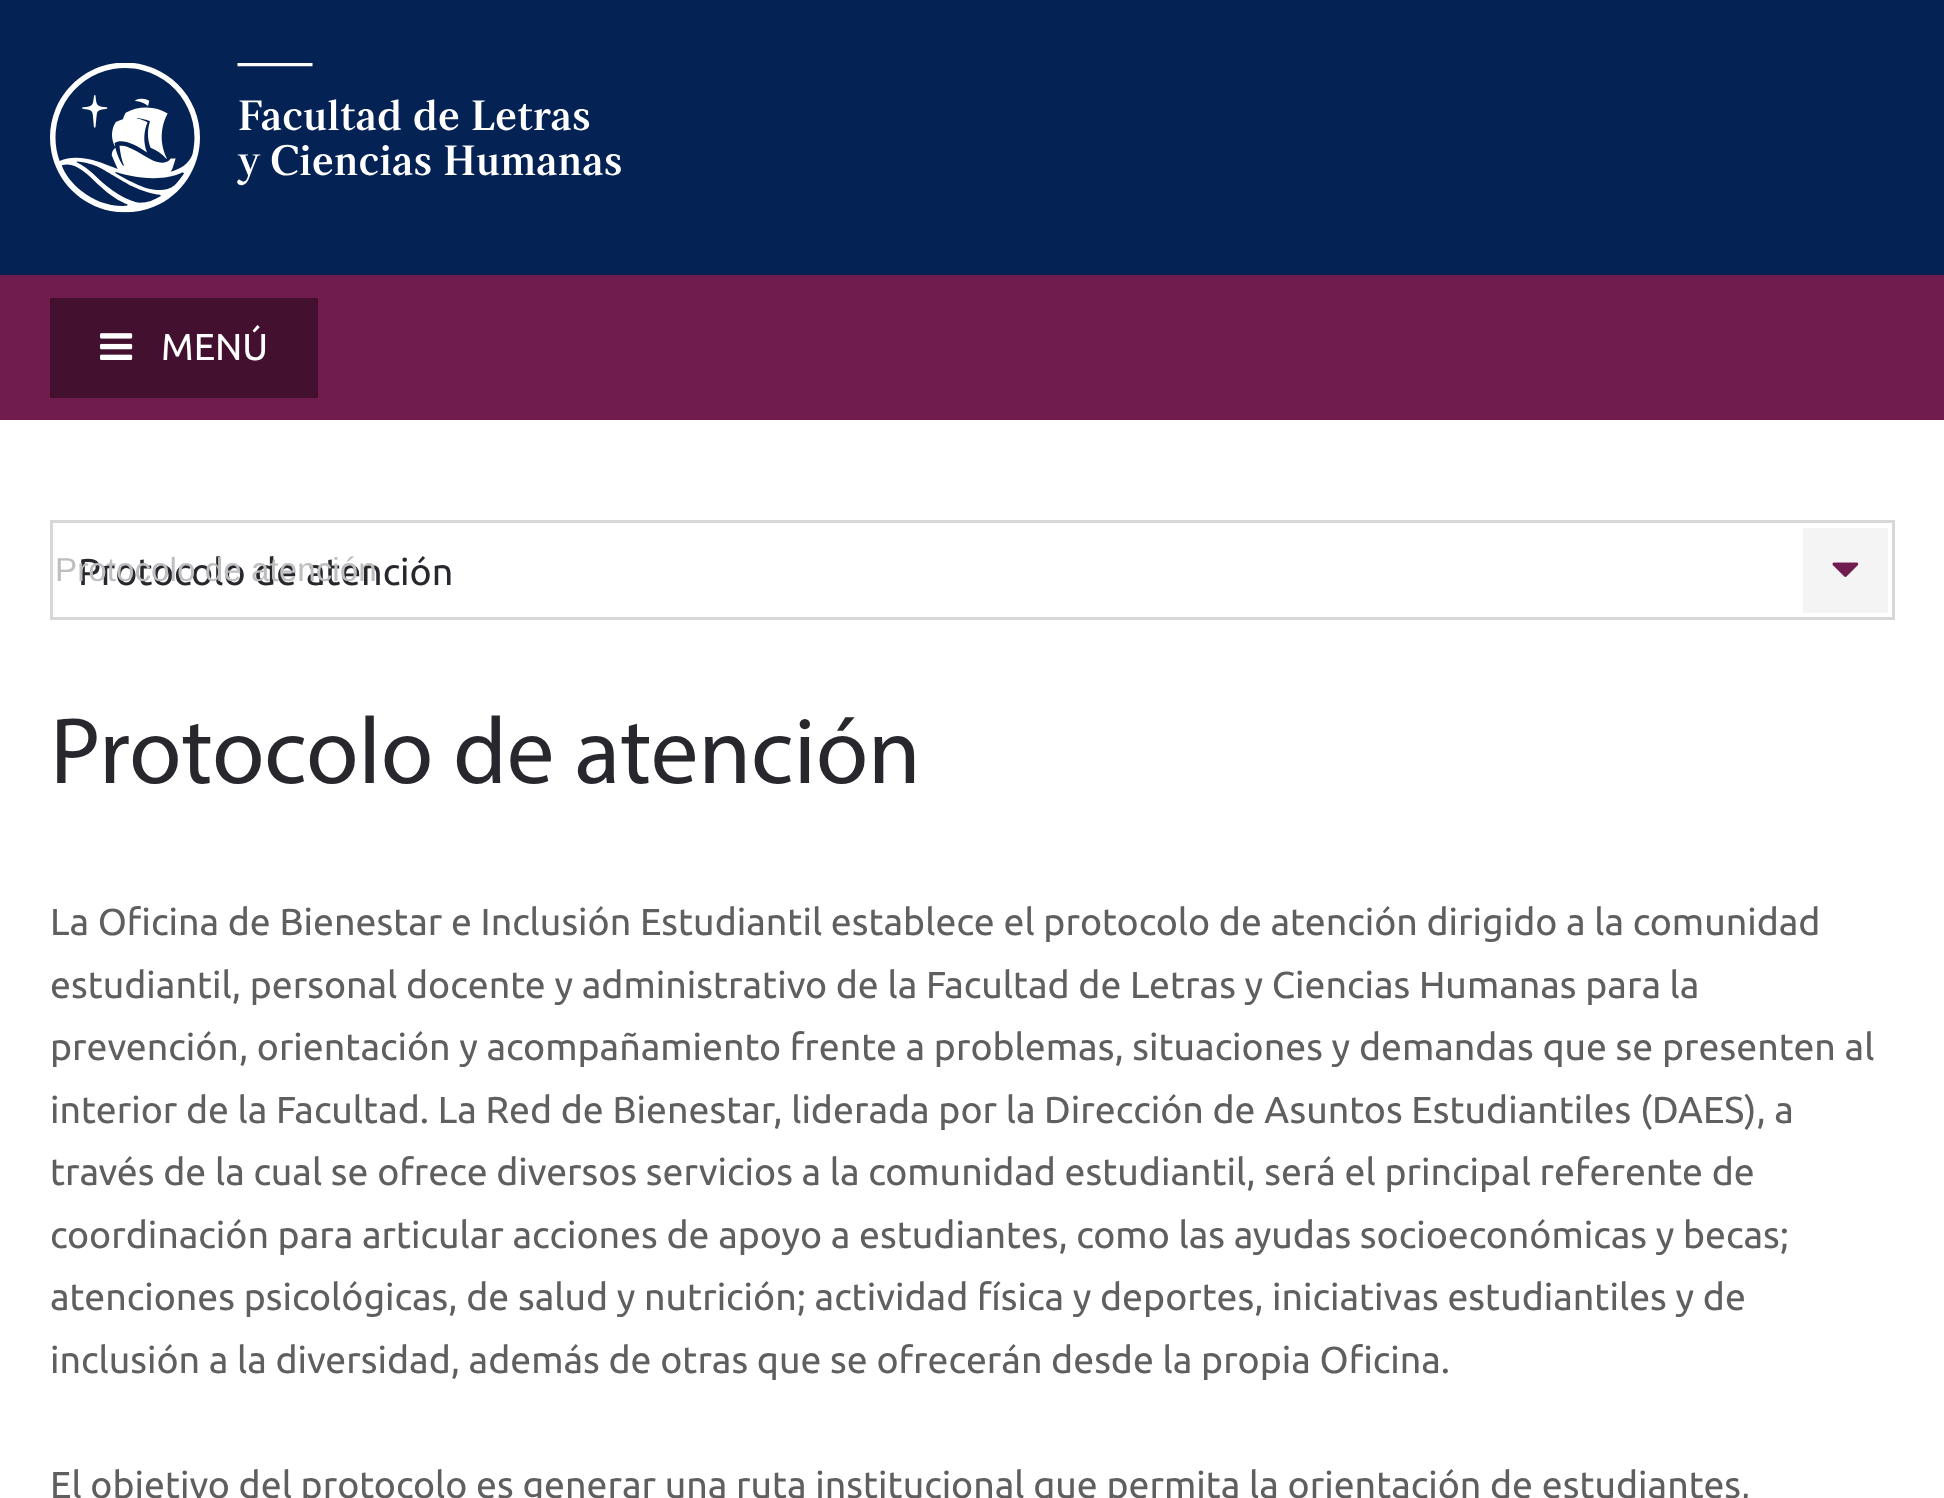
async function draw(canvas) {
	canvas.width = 1944;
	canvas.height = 1498;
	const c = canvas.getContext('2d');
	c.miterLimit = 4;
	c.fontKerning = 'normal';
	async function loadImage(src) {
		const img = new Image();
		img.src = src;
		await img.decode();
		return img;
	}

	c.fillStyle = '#fff';
	c.fillRect(0, 0, 1944, 1498);
	c.fillStyle = '#042354';
	c.fillRect(0, 0, 1944, 275);
	c.drawImage(await loadImage('img1.png'), 50, 63, 571, 150);
	c.fillStyle = '#701c4f';
	c.fillRect(0, 275, 1944, 145);
	c.fillStyle = '#43112f';
	c.fillRect(50, 298, 268, 100);
	c.drawImage(await loadImage('img2.png'), 100, 333, 33, 27);
	c.font = '37.5px Ubuntu';
	c.fillStyle = '#fff';
	c.fillText('MENÚ', 161, 360);
	c.strokeStyle = '#d7d7d7';
	c.lineWidth = 3;
	c.strokeRect(51.5, 521.5, 1842, 97);
	c.fillStyle = '#27272d';
	c.fillText('Protocolo de atención', 78, 585);
	c.fillStyle = '#f4f4f4';
	c.fillRect(1803, 528, 85, 85);
	c.drawImage(await loadImage('img3.png'), 1832, 562, 27, 15);
	c.font = '33.25px Liberation Sans';
	c.fillStyle = '#bebec0';
	c.fillText('Protocolo de atención', 55, 581);
	c.font = '95px Myriad';
	c.fillStyle = '#27272d';
	c.fillText('Protocolo de atención', 50, 783);
	c.font = '37.5px Ubuntu';
	c.fillStyle = '#5f5f5f';
	for (const [text, x, y] of [
		['La Oficina de Bienestar e Inclusión Estudiantil establece el protocolo de atención dirigido a la comunidad', 50, 935],
		['estudiantil, personal docente y administrativo de la Facultad de Letras y Ciencias Humanas para la', 50, 998],
		['prevención, orientación y acompañamiento frente a problemas, situaciones y demandas que se presenten al', 50, 1060],
		['interior de la Facultad. La Red de Bienestar, liderada por la Dirección de Asuntos Estudiantiles (DAES), a', 50, 1123],
		['través de la cual se ofrece diversos servicios a la comunidad estudiantil, será el principal referente de', 50, 1185],
		['coordinación para articular acciones de apoyo a estudiantes, como las ayudas socioeconómicas y becas;', 50, 1248],
		['atenciones psicológicas, de salud y nutrición; actividad física y deportes, iniciativas estudiantiles y de', 50, 1310],
		['inclusión a la diversidad, además de otras que se ofrecerán desde la propia Oficina.', 50, 1373],
		['El objetivo del protocolo es generar una ruta institucional que permita la orientación de estudiantes,', 50, 1498],
	]) {
		c.fillText(text, x, y);
	}
}

draw(document.querySelector('canvas'));
